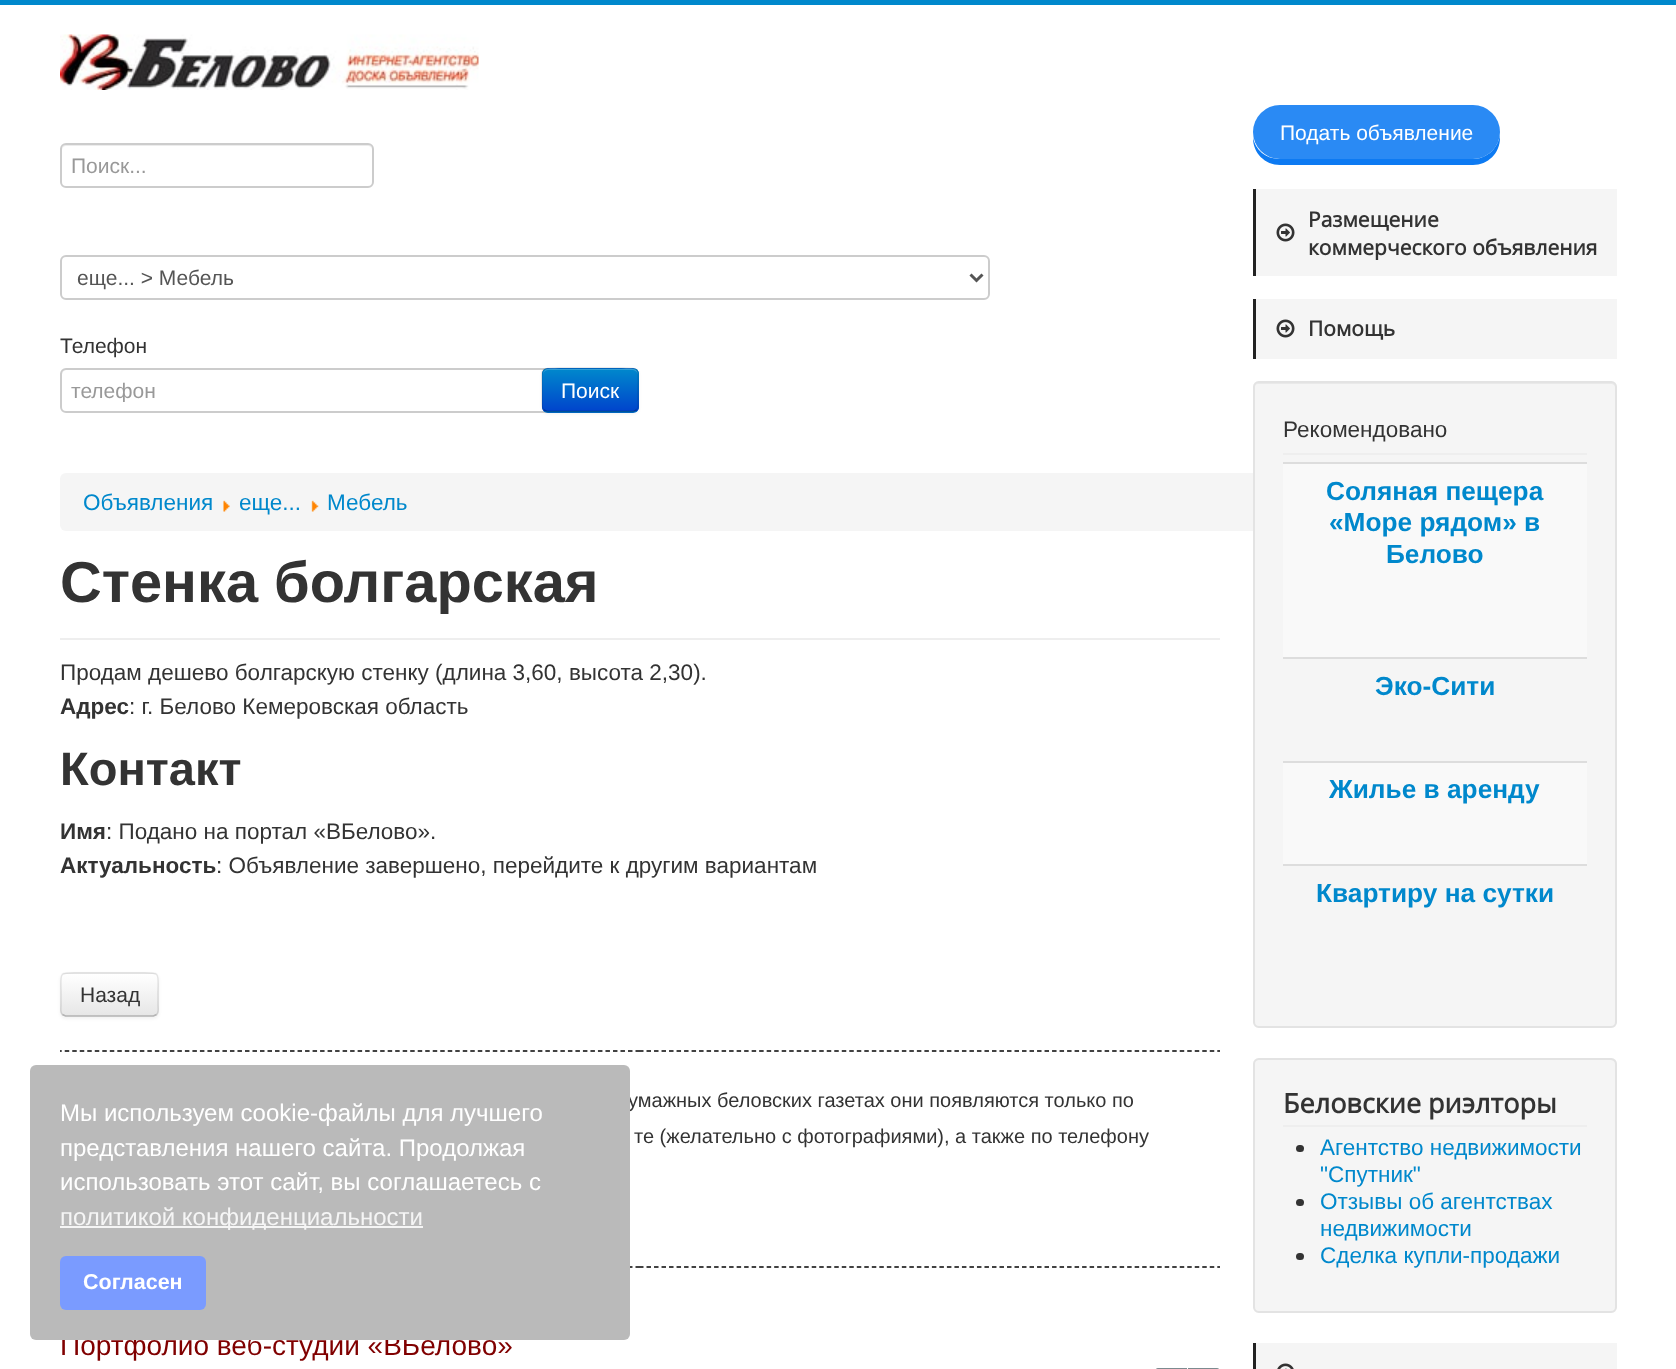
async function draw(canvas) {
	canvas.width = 1676;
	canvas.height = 1369;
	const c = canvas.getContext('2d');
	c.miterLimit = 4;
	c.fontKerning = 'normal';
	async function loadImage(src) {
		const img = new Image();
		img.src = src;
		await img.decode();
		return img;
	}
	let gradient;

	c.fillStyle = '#fff';
	c.fillRect(0, 0, 1676, 1369);
	c.fillStyle = '#08c';
	c.fillRect(0, 0, 1676, 5);
	c.drawImage(await loadImage('img1.png'), 60, 34, 419, 56);
	c.fillStyle = '#ececec';
	c.beginPath();
	c.moveTo(66, 146);
	c.lineTo(368, 146);
	c.bezierCurveTo(370, 146, 372, 148, 372, 150);
	c.bezierCurveTo(372, 147, 370, 144, 367, 144);
	c.lineTo(67, 144);
	c.bezierCurveTo(64, 144, 62, 147, 62, 150);
	c.bezierCurveTo(62, 148, 64, 146, 66, 146);
	c.closePath();
	c.fill();
	c.beginPath();
	c.roundRect(61, 144, 312, 43, 5);
	c.strokeStyle = '#ccc';
	c.lineWidth = 2;
	c.stroke();
	c.font = '21px Liberation Sans';
	c.fillStyle = '#999';
	c.fillText('Поиск...', 71, 173);
	c.beginPath();
	c.roundRect(61, 256, 928, 43, 5);
	c.stroke();
	c.beginPath();
	c.moveTo(970.5, 274.5);
	c.lineTo(976.5, 280.5);
	c.lineTo(982.5, 274.5);
	c.strokeStyle = '#555';
	c.lineWidth = 3;
	c.stroke();
	c.fillStyle = '#555';
	c.fillText('еще... > Мебель', 77, 285);
	c.fillStyle = '#333';
	c.fillText('Телефон', 60, 353);
	c.fillStyle = '#ececec';
	c.beginPath();
	c.moveTo(66, 370);
	c.lineTo(549, 370);
	c.bezierCurveTo(551, 370, 554, 373, 554, 375);
	c.lineTo(554, 374);
	c.bezierCurveTo(554, 371, 552, 369, 549, 369);
	c.lineTo(67, 369);
	c.bezierCurveTo(64, 369, 62, 371, 62, 374);
	c.lineTo(62, 375);
	c.bezierCurveTo(62, 373, 64, 370, 66, 370);
	c.closePath();
	c.fill();
	c.beginPath();
	c.roundRect(61, 369, 493, 43, 5);
	c.strokeStyle = '#ccc';
	c.lineWidth = 2;
	c.stroke();
	c.save();
	c.beginPath();
	c.rect(71, 378, 474, 24);
	c.clip();
	c.fillStyle = '#999';
	c.fillText('телефон', 71, 398);
	c.restore();
	c.fillStyle = '#0000000d';
	c.filter = 'blur(1.5px)';
	c.beginPath();
	c.roundRect(542, 369, 97, 45, 6);
	c.fill();
	c.filter = 'none';
	c.fillStyle = '#006dcc';
	c.beginPath();
	c.roundRect(542, 368, 97, 45, 6);
	c.fill();
	c.save();
	c.beginPath();
	c.roundRect(542, 368, 97, 45, 6);
	c.clip();
	gradient = c.createLinearGradient(590, 369, 590, 411);
	gradient.addColorStop(0, '#08c');
	gradient.addColorStop(1, '#04c');
	c.fillStyle = gradient;
	c.fillRect(542, 369, 97, 42);
	c.restore();
	c.fillStyle = '#ffffff33';
	c.beginPath();
	c.moveTo(548, 370);
	c.lineTo(633, 370);
	c.bezierCurveTo(635, 370, 638, 373, 638, 375);
	c.bezierCurveTo(638, 365, 624, 369, 619, 369);
	c.lineTo(562, 369);
	c.bezierCurveTo(557, 369, 543, 365, 543, 375);
	c.bezierCurveTo(543, 373, 545, 370, 548, 370);
	c.closePath();
	c.fill();
	c.beginPath();
	c.moveTo(636.5, 410);
	c.lineTo(633.5, 411.5);
	c.lineTo(547, 411.5);
	c.lineTo(544, 410);
	c.strokeStyle = '#00000040';
	c.lineWidth = 1.5;
	c.stroke();
	c.beginPath();
	c.moveTo(544, 410);
	c.bezierCurveTo(541.5, 408, 542, 404, 542, 401);
	c.lineTo(542, 390);
	c.bezierCurveTo(542, 366.5, 538.5, 368, 562, 368);
	c.lineTo(619, 368);
	c.bezierCurveTo(642, 368, 638, 366.5, 638, 390);
	c.lineTo(638, 401);
	c.bezierCurveTo(638, 404, 639, 408, 636.5, 410);
	c.strokeStyle = '#0000001a';
	c.stroke();
	c.fillStyle = '#fff';
	c.fillText('Поиск', 561, 398);
	c.fillStyle = '#f5f5f5';
	c.beginPath();
	c.roundRect(60, 473, 1205, 58, 6);
	c.fill();
	c.font = '22.5px Liberation Sans';
	c.fillStyle = '#08c';
	c.fillText('Объявления', 83, 510);
	c.drawImage(await loadImage('img2.png'), 223, 500, 7, 12);
	c.fillText('еще...', 239, 510);
	c.drawImage(await loadImage('img3.png'), 311, 500, 8, 12);
	c.fillText('Мебель', 327, 510);
	c.fillStyle = '#eee';
	c.fillRect(60, 638, 1160, 2);
	c.font = 'bold 57.75px Liberation Sans';
	c.fillStyle = '#333';
	c.fillText('Стенка болгарская', 60, 602);
	c.font = '22.5px Liberation Sans';
	c.fillText('Продам дешево болгарскую стенку (длина 3,60, высота 2,30).', 60, 680);
	c.font = 'bold 22.5px Liberation Sans';
	c.fillText('Адрес', 60, 714);
	c.font = '22.5px Liberation Sans';
	c.fillText(': г. Белово Кемеровская область', 129, 714);
	c.font = 'bold 47px Liberation Sans';
	c.fillText('Контакт', 60, 785);
	c.font = 'bold 22.5px Liberation Sans';
	c.fillText('Имя', 60, 839);
	c.font = '22.5px Liberation Sans';
	c.fillText(': Подано на портал «ВБелово».', 106, 839);
	c.font = 'bold 22.5px Liberation Sans';
	c.fillText('Актуальность', 60, 873);
	c.font = '22.5px Liberation Sans';
	c.fillText(': Объявление завершено, перейдите к другим вариантам', 216, 873);
	c.fillStyle = '#0000000d';
	c.filter = 'blur(1.5px)';
	c.beginPath();
	c.roundRect(60, 974, 99, 45, 6);
	c.fill();
	c.filter = 'none';
	c.fillStyle = '#f5f5f5';
	c.beginPath();
	c.roundRect(60, 972, 99, 45, 6);
	c.fill();
	c.save();
	c.beginPath();
	c.roundRect(60, 972, 99, 45, 6);
	c.clip();
	gradient = c.createLinearGradient(110, 974, 110, 1016);
	gradient.addColorStop(0, '#fff');
	gradient.addColorStop(1, '#e6e6e6');
	c.fillStyle = gradient;
	c.fillRect(60, 974, 99, 42);
	c.restore();
	c.beginPath();
	c.moveTo(156.5, 1014.5);
	c.lineTo(153.5, 1016);
	c.lineTo(65.5, 1016);
	c.lineTo(62.5, 1014.5);
	c.strokeStyle = '#b3b3b3';
	c.stroke();
	c.beginPath();
	c.moveTo(62.5, 1014.5);
	c.bezierCurveTo(60, 1012.5, 61, 1008.5, 61, 1005.5);
	c.lineTo(61, 994.5);
	c.bezierCurveTo(61, 971, 57, 973, 80.5, 973);
	c.lineTo(138.5, 973);
	c.bezierCurveTo(162, 973, 158, 971, 158, 994.5);
	c.lineTo(158, 1005.5);
	c.bezierCurveTo(158, 1008.5, 159, 1012.5, 156.5, 1014.5);
	c.strokeStyle = '#0000001a';
	c.stroke();
	c.font = '21px Liberation Sans';
	c.fillStyle = '#333';
	c.fillText('Назад', 80, 1002);
	c.save();
	c.beginPath();
	c.rect(60, 1032, 1160, 35);
	c.clip();
	c.beginPath();
	c.moveTo(-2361, 1051);
	c.lineTo(639, 1051);
	c.strokeStyle = '#050505';
	c.setLineDash([4.5, 3.01]);
	c.stroke();
	c.beginPath();
	c.moveTo(639, 1051);
	c.lineTo(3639, 1051);
	c.stroke();
	c.restore();
	c.font = '20px Liberation Sans';
	c.fillText('умажных беловских газетах они появляются только по', 628, 1107);
	c.fillText('те (желательно с фотографиями), а также по телефону', 634, 1143);
	c.save();
	c.beginPath();
	c.rect(60, 1248, 1160, 35);
	c.clip();
	c.beginPath();
	c.moveTo(-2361, 1267);
	c.lineTo(639, 1267);
	c.strokeStyle = '#050505';
	c.setLineDash([4.5, 3.01]);
	c.stroke();
	c.beginPath();
	c.moveTo(639, 1267);
	c.lineTo(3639, 1267);
	c.stroke();
	c.restore();
	c.font = '28px Liberation Sans';
	c.fillStyle = '#800000';
	c.fillText('Портфолио веб-студии «ВБелово»', 60, 1355);
	c.fillStyle = '#7c8b90';
	c.beginPath();
	c.moveTo(1158, 1368);
	c.lineTo(1187, 1368);
	c.lineTo(1187, 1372);
	c.lineTo(1158, 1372);
	c.bezierCurveTo(1156.5, 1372, 1155, 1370.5, 1155, 1369);
	c.lineTo(1155, 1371);
	c.bezierCurveTo(1155, 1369.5, 1156.5, 1368, 1158, 1368);
	c.closePath();
	c.fill();
	c.beginPath();
	c.moveTo(1188, 1368);
	c.lineTo(1217, 1368);
	c.bezierCurveTo(1218.5, 1368, 1220, 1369.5, 1220, 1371);
	c.lineTo(1220, 1369);
	c.bezierCurveTo(1220, 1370.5, 1218.5, 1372, 1217, 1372);
	c.lineTo(1188, 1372);
	c.closePath();
	c.fill();
	c.fillStyle = '#0d7af2';
	c.beginPath();
	c.moveTo(1253, 137);
	c.lineTo(1253, 138);
	c.bezierCurveTo(1253, 153, 1265, 165, 1280, 165);
	c.lineTo(1473, 165);
	c.bezierCurveTo(1488, 165, 1500, 153, 1500, 138);
	c.lineTo(1500, 135);
	c.bezierCurveTo(1498, 148, 1487, 159, 1473, 159);
	c.lineTo(1280, 159);
	c.bezierCurveTo(1266, 159, 1255, 150, 1253, 137);
	c.closePath();
	c.fill();
	c.fillStyle = '#2a8af4';
	c.beginPath();
	c.roundRect(1253, 105, 247, 54, 27);
	c.fill();
	c.font = '21px Liberation Sans';
	c.fillStyle = '#fff';
	c.fillText('Подать объявление', 1280, 140);
	c.fillStyle = '#f5f5f5';
	c.fillRect(1256, 189, 361, 87);
	c.fillStyle = '#222';
	c.fillRect(1253, 189, 3, 87);
	c.drawImage(await loadImage('img4.png'), 1276, 223, 19, 19);
	c.font = 'bold 21px Open Sans';
	c.fillStyle = '#333';
	c.fillText('Размещение', 1308, 227);
	c.fillText('коммерческого объявления', 1308, 255);
	c.fillStyle = '#f5f5f5';
	c.fillRect(1256, 299, 361, 60);
	c.fillStyle = '#222';
	c.fillRect(1253, 299, 3, 60);
	c.drawImage(await loadImage('img4.png'), 1276, 319, 19, 19);
	c.fillStyle = '#333';
	c.fillText('Помощь', 1308, 336);
	c.fillStyle = '#f5f5f5';
	c.beginPath();
	c.roundRect(1253, 381, 364, 647, 6);
	c.fill();
	c.fillStyle = '#e9e9e9';
	c.beginPath();
	c.moveTo(1258, 384);
	c.lineTo(1611, 384);
	c.bezierCurveTo(1613, 384, 1616, 386, 1616, 388);
	c.bezierCurveTo(1616, 385, 1614, 383, 1611, 383);
	c.lineTo(1259, 383);
	c.bezierCurveTo(1256, 383, 1254, 385, 1254, 388);
	c.bezierCurveTo(1254, 386, 1256, 384, 1258, 384);
	c.closePath();
	c.fill();
	c.beginPath();
	c.roundRect(1254, 382, 362, 645, 5);
	c.strokeStyle = '#e3e3e3';
	c.lineWidth = 2;
	c.stroke();
	c.fillStyle = '#eee';
	c.fillRect(1283, 453, 304, 2);
	c.font = '22.5px Liberation Sans';
	c.fillStyle = '#333';
	c.fillText('Рекомендовано', 1283, 437);
	c.fillStyle = '#f9f9f9';
	c.fillRect(1283, 464, 304, 193);
	c.fillStyle = '#ddd';
	c.fillRect(1283, 462, 304, 2);
	c.font = 'bold 26.25px Liberation Sans';
	c.fillStyle = '#08c';
	for (const [text, x, y] of [
		['Соляная пещера', 1326, 500],
		['«Море рядом» в', 1329, 531],
		['Белово', 1386, 563],
	]) {
		c.fillText(text, x, y);
	}
	c.fillStyle = '#ddd';
	c.fillRect(1283, 657, 304, 2);
	c.fillStyle = '#08c';
	c.fillText('Эко-Сити', 1375, 695);
	c.fillStyle = '#f9f9f9';
	c.fillRect(1283, 763, 304, 101);
	c.fillStyle = '#ddd';
	c.fillRect(1283, 761, 304, 2);
	c.fillStyle = '#08c';
	c.fillText('Жилье в аренду', 1329, 798);
	c.fillStyle = '#ddd';
	c.fillRect(1283, 864, 304, 2);
	c.fillStyle = '#08c';
	c.fillText('Квартиру на сутки', 1316, 902);
	c.fillStyle = '#f5f5f5';
	c.beginPath();
	c.roundRect(1253, 1058, 364, 255, 6);
	c.fill();
	c.fillStyle = '#e9e9e9';
	c.beginPath();
	c.moveTo(1258, 1060);
	c.lineTo(1611, 1060);
	c.bezierCurveTo(1613, 1060, 1616, 1063, 1616, 1065);
	c.lineTo(1616, 1064);
	c.bezierCurveTo(1616, 1061, 1614, 1059, 1611, 1059);
	c.lineTo(1259, 1059);
	c.bezierCurveTo(1256, 1059, 1254, 1061, 1254, 1064);
	c.lineTo(1254, 1065);
	c.bezierCurveTo(1254, 1063, 1256, 1060, 1258, 1060);
	c.closePath();
	c.fill();
	c.beginPath();
	c.roundRect(1254, 1059, 362, 253, 5);
	c.stroke();
	c.fillStyle = '#eee';
	c.fillRect(1283, 1125, 304, 2);
	c.font = 'bold 27px Open Sans';
	c.fillStyle = '#333';
	c.fillText('Беловские риэлторы', 1283, 1113);
	c.beginPath();
	c.roundRect(1296, 1145, 8, 7, 3.5);
	c.fill();
	c.font = '22.5px Liberation Sans';
	c.fillStyle = '#08c';
	c.fillText('Агентство недвижимости', 1320, 1155);
	c.fillText('"Спутник"', 1320, 1182);
	c.fillStyle = '#333';
	c.beginPath();
	c.roundRect(1296, 1199, 8, 7, 3.5);
	c.fill();
	c.fillStyle = '#08c';
	c.fillText('Отзывы об агентствах', 1320, 1209);
	c.fillText('недвижимости', 1320, 1236);
	c.fillStyle = '#333';
	c.beginPath();
	c.roundRect(1296, 1253, 8, 7, 3.5);
	c.fill();
	c.fillStyle = '#08c';
	c.fillText('Сделка купли-продажи', 1320, 1263);
	c.fillStyle = '#f5f5f5';
	c.fillRect(1256, 1343, 361, 26);
	c.fillStyle = '#222';
	c.fillRect(1253, 1343, 3, 26);
	c.drawImage(await loadImage('img5.png'), 1277, 1363, 17, 6);
	c.fillStyle = '#bababa';
	c.beginPath();
	c.roundRect(30, 1065, 600, 275, 6);
	c.fill();
	c.font = '24px Liberation Sans';
	c.fillStyle = '#fff';
	for (const [text, x, y] of [
		['Мы используем cookie-файлы для лучшего', 60, 1121],
		['представления нашего сайта. Продолжая', 60, 1156],
		['использовать этот сайт, вы соглашаетесь с', 60, 1190],
	]) {
		c.fillText(text, x, y);
	}
	c.fillStyle = '#f5f5f5';
	c.fillRect(60, 1226, 363, 2);
	c.fillText('политикой конфиденциальности', 60, 1225);
	c.fillStyle = '#7a9bff';
	c.beginPath();
	c.roundRect(60, 1256, 146, 54, 6);
	c.fill();
	c.font = 'bold 21.5px Liberation Sans';
	c.fillStyle = '#fff';
	c.fillText('Согласен', 83, 1289);
}

draw(document.querySelector('canvas'));
